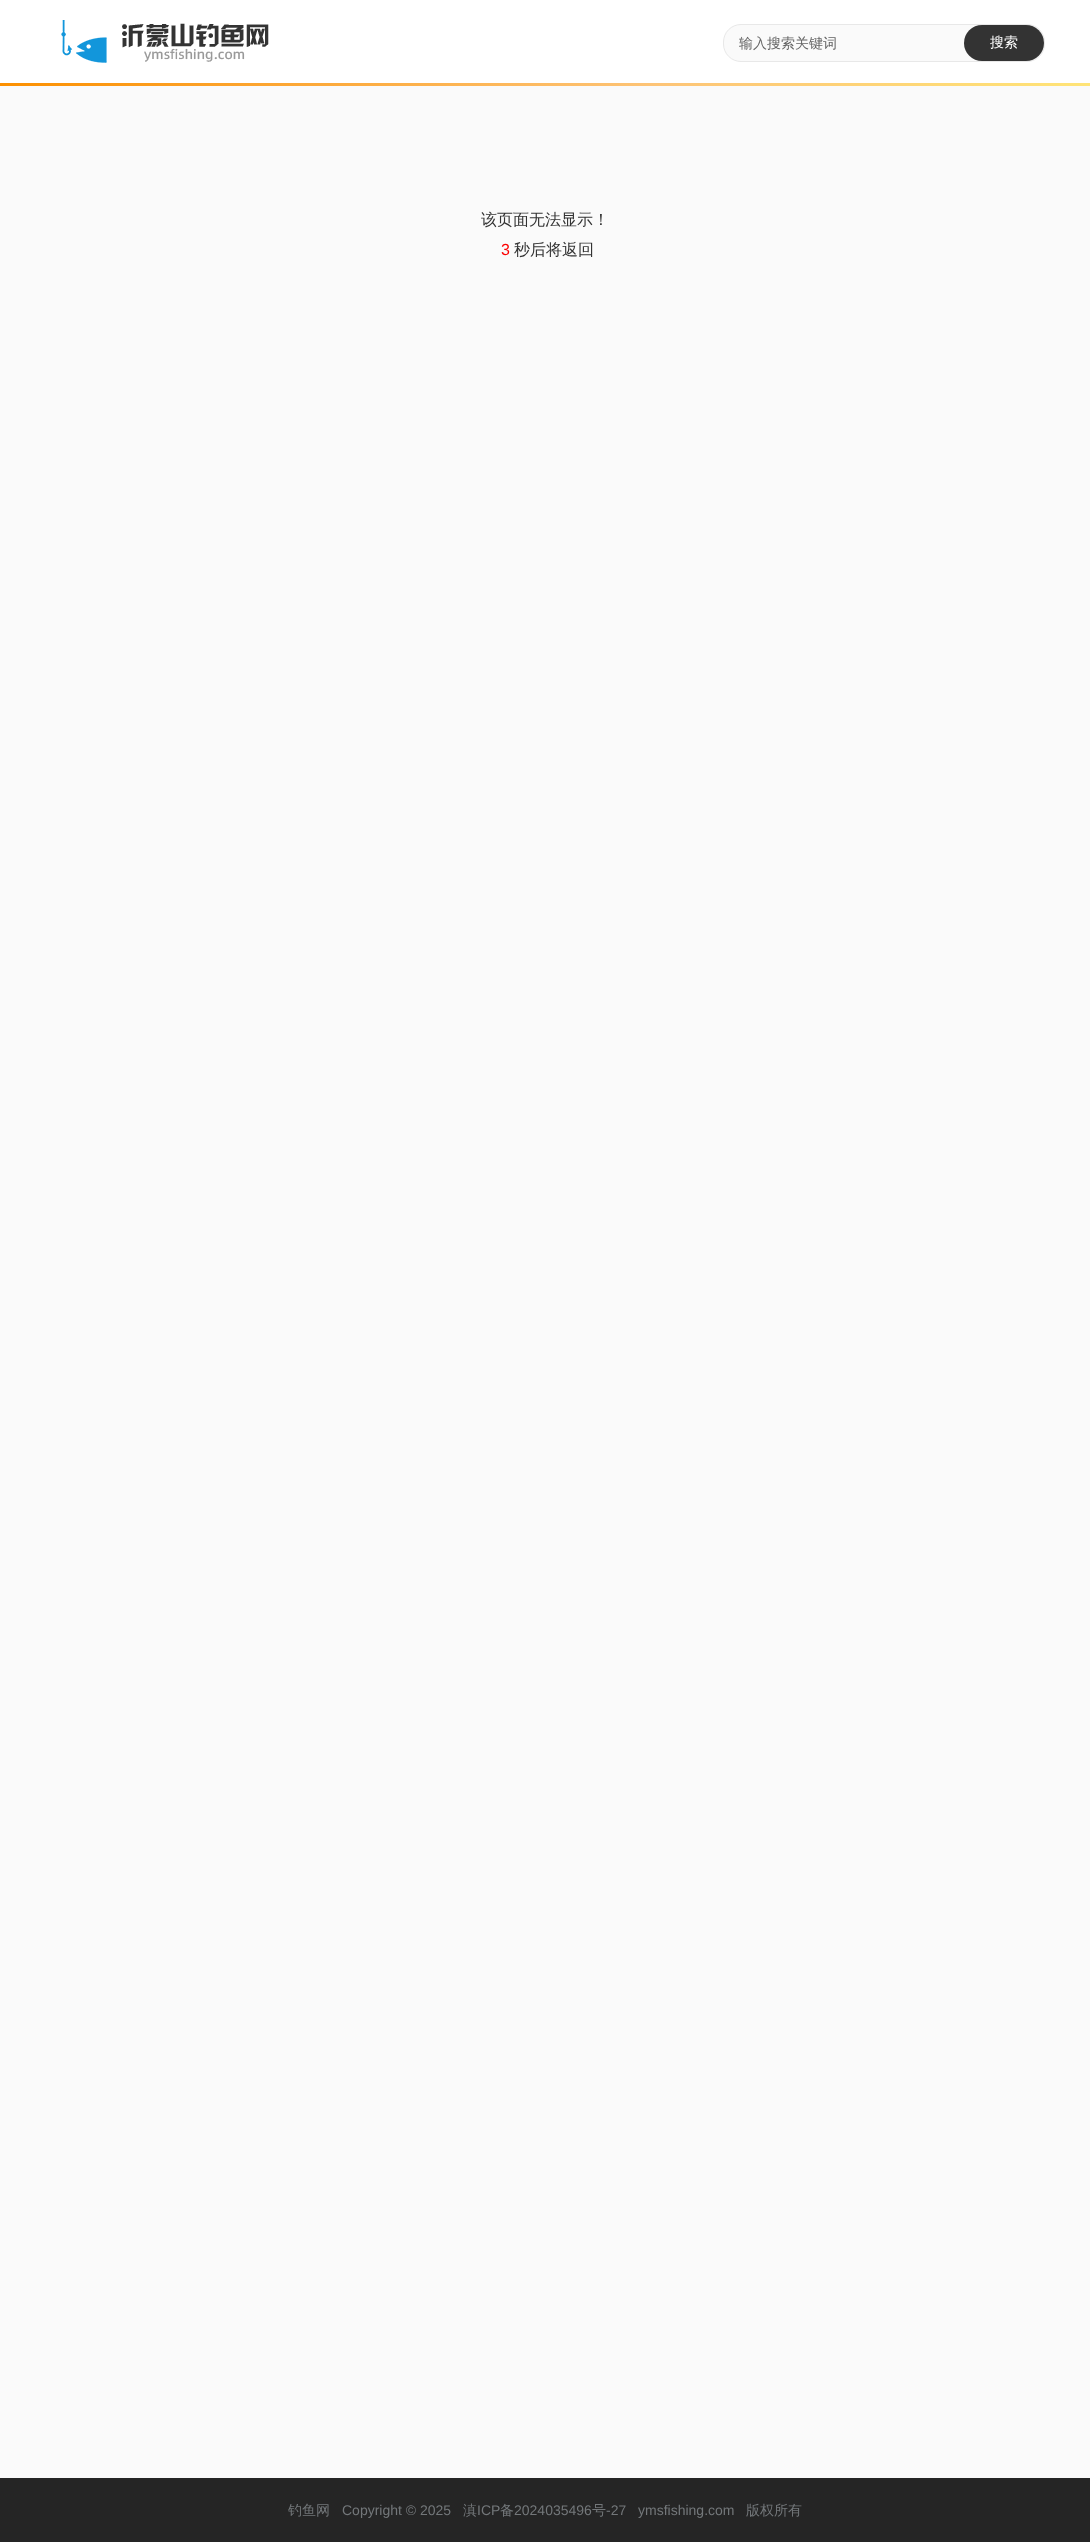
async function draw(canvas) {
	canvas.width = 1090;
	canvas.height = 2542;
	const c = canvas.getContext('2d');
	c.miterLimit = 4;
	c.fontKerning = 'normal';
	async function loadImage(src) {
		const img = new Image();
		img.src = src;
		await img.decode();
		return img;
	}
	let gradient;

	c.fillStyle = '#fafafa';
	c.fillRect(0, 0, 1090, 2542);
	c.fillStyle = '#fff';
	c.fillRect(0, 0, 1090, 83);
	c.drawImage(await loadImage('img1.png'), 61, 20, 208, 43);
	c.fillStyle = '#fafafa';
	c.beginPath();
	c.roundRect(723.5, 24.5, 321, 37, 17.5);
	c.fill();
	c.strokeStyle = '#e8e8e8';
	c.stroke();
	c.font = '500 14px WenQuanYi Zen Hei';
	c.fillStyle = '#646464';
	c.fillText('输入搜索关键词', 739, 48);
	c.fillStyle = '#333';
	c.beginPath();
	c.roundRect(964, 25, 80, 36, 18);
	c.fill();
	c.fillStyle = '#fff';
	c.fillText('搜索', 990, 47);
	gradient = c.createLinearGradient(0, 85, 1090, 84);
	gradient.addColorStop(0, '#fc9000');
	gradient.addColorStop(0.6, '#fdc477');
	gradient.addColorStop(1, '#ffe477');
	c.fillStyle = gradient;
	c.fillRect(0, 83, 1090, 3);
	c.font = '500 16px WenQuanYi Zen Hei';
	c.fillStyle = '#333';
	c.fillText('该页面无法显示！', 481, 225);
	c.font = '16px Liberation Sans';
	c.fillStyle = '#fc0000';
	c.fillText('3', 501, 255);
	c.font = '500 16px WenQuanYi Zen Hei';
	c.fillStyle = '#333';
	c.fillText('秒后将返回', 514, 255);
	c.fillStyle = '#252525';
	c.fillRect(0, 2478, 1090, 64);
	c.font = '500 14px WenQuanYi Zen Hei';
	c.fillStyle = '#73777a';
	c.fillText('钓鱼网', 288, 2515);
	c.font = '14px Liberation Sans';
	c.fillText('Copyright © 2025', 342, 2515);
	c.font = '500 14px WenQuanYi Zen Hei';
	c.fillText('滇', 463, 2515);
	c.font = '14px Liberation Sans';
	c.fillText('ICP', 477, 2515);
	c.font = '500 14px WenQuanYi Zen Hei';
	c.fillText('备', 500, 2515);
	c.font = '14px Liberation Sans';
	c.fillText('2024035496', 514, 2515);
	c.font = '500 14px WenQuanYi Zen Hei';
	c.fillText('号', 592, 2515);
	c.font = '14px Liberation Sans';
	c.fillText('-27', 606, 2515);
	c.fillText('ymsfishing.com', 638, 2515);
	c.font = '500 14px WenQuanYi Zen Hei';
	c.fillText('版权所有', 746, 2515);
}

draw(document.querySelector('canvas'));
